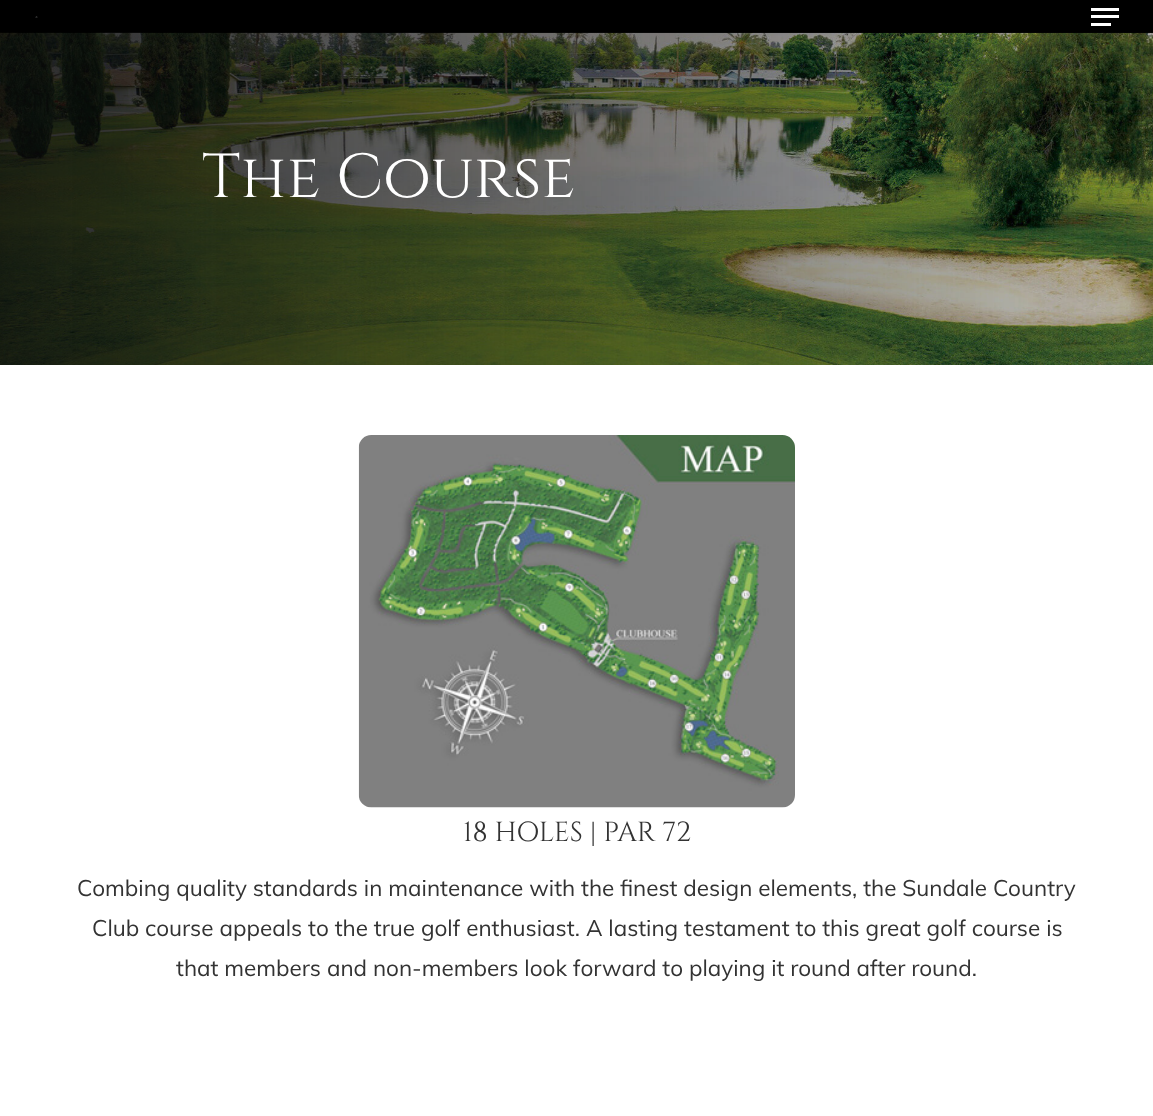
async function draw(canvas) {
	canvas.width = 1153;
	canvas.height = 1116;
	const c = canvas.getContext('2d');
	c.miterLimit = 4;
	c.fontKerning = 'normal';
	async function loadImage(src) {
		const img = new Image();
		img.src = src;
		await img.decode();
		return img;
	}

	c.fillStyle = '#fff';
	c.fillRect(0, 0, 1153, 1116);
	c.fillStyle = '#000';
	c.fillRect(0, 0, 1153, 32);
	c.drawImage(await loadImage('img2.png'), 0, 32, 1153, 333);
	c.fillStyle = '#000000f2';
	c.fillRect(0, 32, 1153, 1);
	c.drawImage(await loadImage('img1.png'), 35, 16, 3, 2);
	for (const [x, y, w, h, color] of [
		[1091, 8, 28, 3, '#fff'],
		[1091, 23, 20, 3, '#fff'],
		[1091, 15, 28, 3, '#fff'],
	]) {
		c.fillStyle = color;
		c.fillRect(x, y, w, h);
	}
	c.font = '62px Cinzel';
	c.fillText('The Course', 202, 197);
	c.drawImage(await loadImage('img3.png'), 358, 435, 437, 373);
	c.font = '27.5px Cinzel';
	c.fillStyle = '#333';
	c.fillText('18 HOLES | PAR 72', 463, 841);
	c.font = '22.5px Muli';
	for (const [text, x, y] of [
		['Combing quality standards in maintenance with the finest design elements, the Sundale Country', 77, 896],
		['Club course appeals to the true golf enthusiast. A lasting testament to this great golf course is', 92, 936],
		['that members and non-members look forward to playing it round after round.', 176, 976],
	]) {
		c.fillText(text, x, y);
	}
}

draw(document.querySelector('canvas'));
